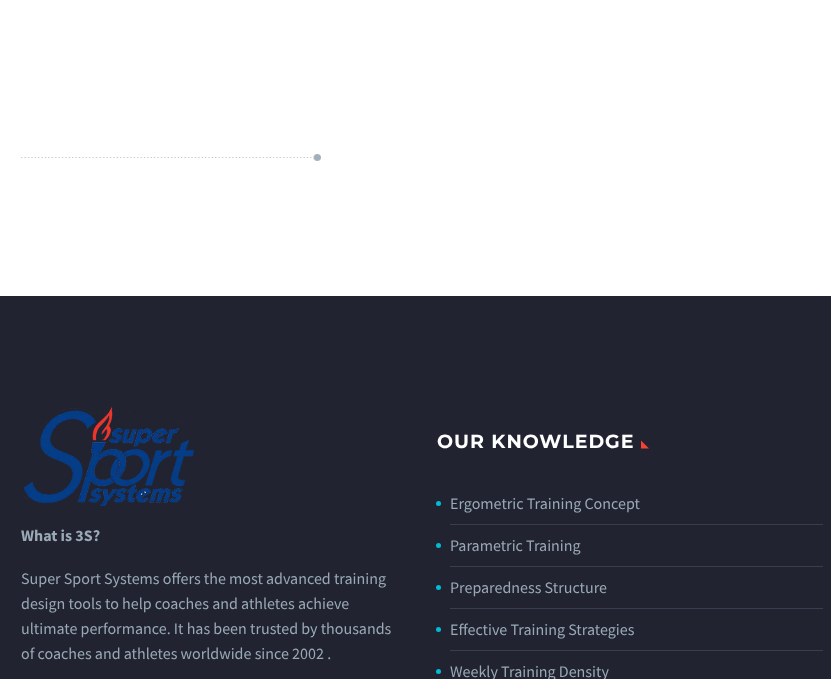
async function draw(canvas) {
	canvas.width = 831;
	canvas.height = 679;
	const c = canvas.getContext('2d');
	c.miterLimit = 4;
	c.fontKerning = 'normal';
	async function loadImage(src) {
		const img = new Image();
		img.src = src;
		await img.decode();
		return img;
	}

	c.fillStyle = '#fff';
	c.fillRect(0, 0, 831, 679);
	c.drawImage(await loadImage('img1.png'), 21, 154, 300, 7);
	c.fillStyle = '#212331';
	c.fillRect(0, 296, 831, 383);
	c.drawImage(await loadImage('img2.png'), 22, 406, 173, 100);
	c.font = 'bold 16px Source Sans Pro';
	c.fillStyle = '#99a9b5';
	c.fillText('What is 3S?', 21, 541);
	c.font = '16px Source Sans Pro';
	for (const [text, x, y] of [
		['Super Sport Systems offers the most advanced training', 21, 584],
		['design tools to help coaches and athletes achieve', 21, 609],
		['ultimate performance. It has been trusted by thousands', 21, 634],
		['of coaches and athletes worldwide since 2002 .', 21, 659],
	]) {
		c.fillText(text, x, y);
	}
	c.letterSpacing = '1px';
	c.font = 'bold 19px Montserrat';
	c.fillStyle = '#feffff';
	c.fillText('OUR KNOWLEDGE', 437, 448);
	c.fillStyle = '#f44336';
	c.beginPath();
	c.moveTo(641, 440.5);
	c.lineTo(641, 448.5);
	c.lineTo(649, 448.5);
	c.closePath();
	c.fill();
	c.fillStyle = '#393d50';
	c.fillRect(450, 524, 373, 1);
	c.fillStyle = '#00bcd4';
	c.beginPath();
	c.arc(438.5, 503.5, 2.5, 0, 2 * Math.PI);
	c.fill();
	c.letterSpacing = '0px';
	c.font = '16px Source Sans Pro';
	c.fillStyle = '#99a9b5';
	c.fillText('Ergometric Training Concept', 450, 509);
	c.fillStyle = '#393d50';
	c.fillRect(450, 566, 373, 1);
	c.fillStyle = '#00bcd4';
	c.beginPath();
	c.arc(438.5, 545.5, 2.5, 0, 2 * Math.PI);
	c.fill();
	c.fillStyle = '#99a9b5';
	c.fillText('Parametric Training', 450, 551);
	c.fillStyle = '#393d50';
	c.fillRect(450, 608, 373, 1);
	c.fillStyle = '#00bcd4';
	c.beginPath();
	c.arc(438.5, 587.5, 2.5, 0, 2 * Math.PI);
	c.fill();
	c.fillStyle = '#99a9b5';
	c.fillText('Preparedness Structure', 450, 593);
	c.fillStyle = '#393d50';
	c.fillRect(450, 650, 373, 1);
	c.fillStyle = '#00bcd4';
	c.beginPath();
	c.arc(438.5, 629.5, 2.5, 0, 2 * Math.PI);
	c.fill();
	c.fillStyle = '#99a9b5';
	c.fillText('Effective Training Strategies', 450, 635);
	c.fillStyle = '#00bcd4';
	c.beginPath();
	c.arc(438.5, 671.5, 2.5, 0, 2 * Math.PI);
	c.fill();
	c.fillStyle = '#99a9b5';
	c.fillText('Weekly Training Density', 450, 677);
}

draw(document.querySelector('canvas'));
